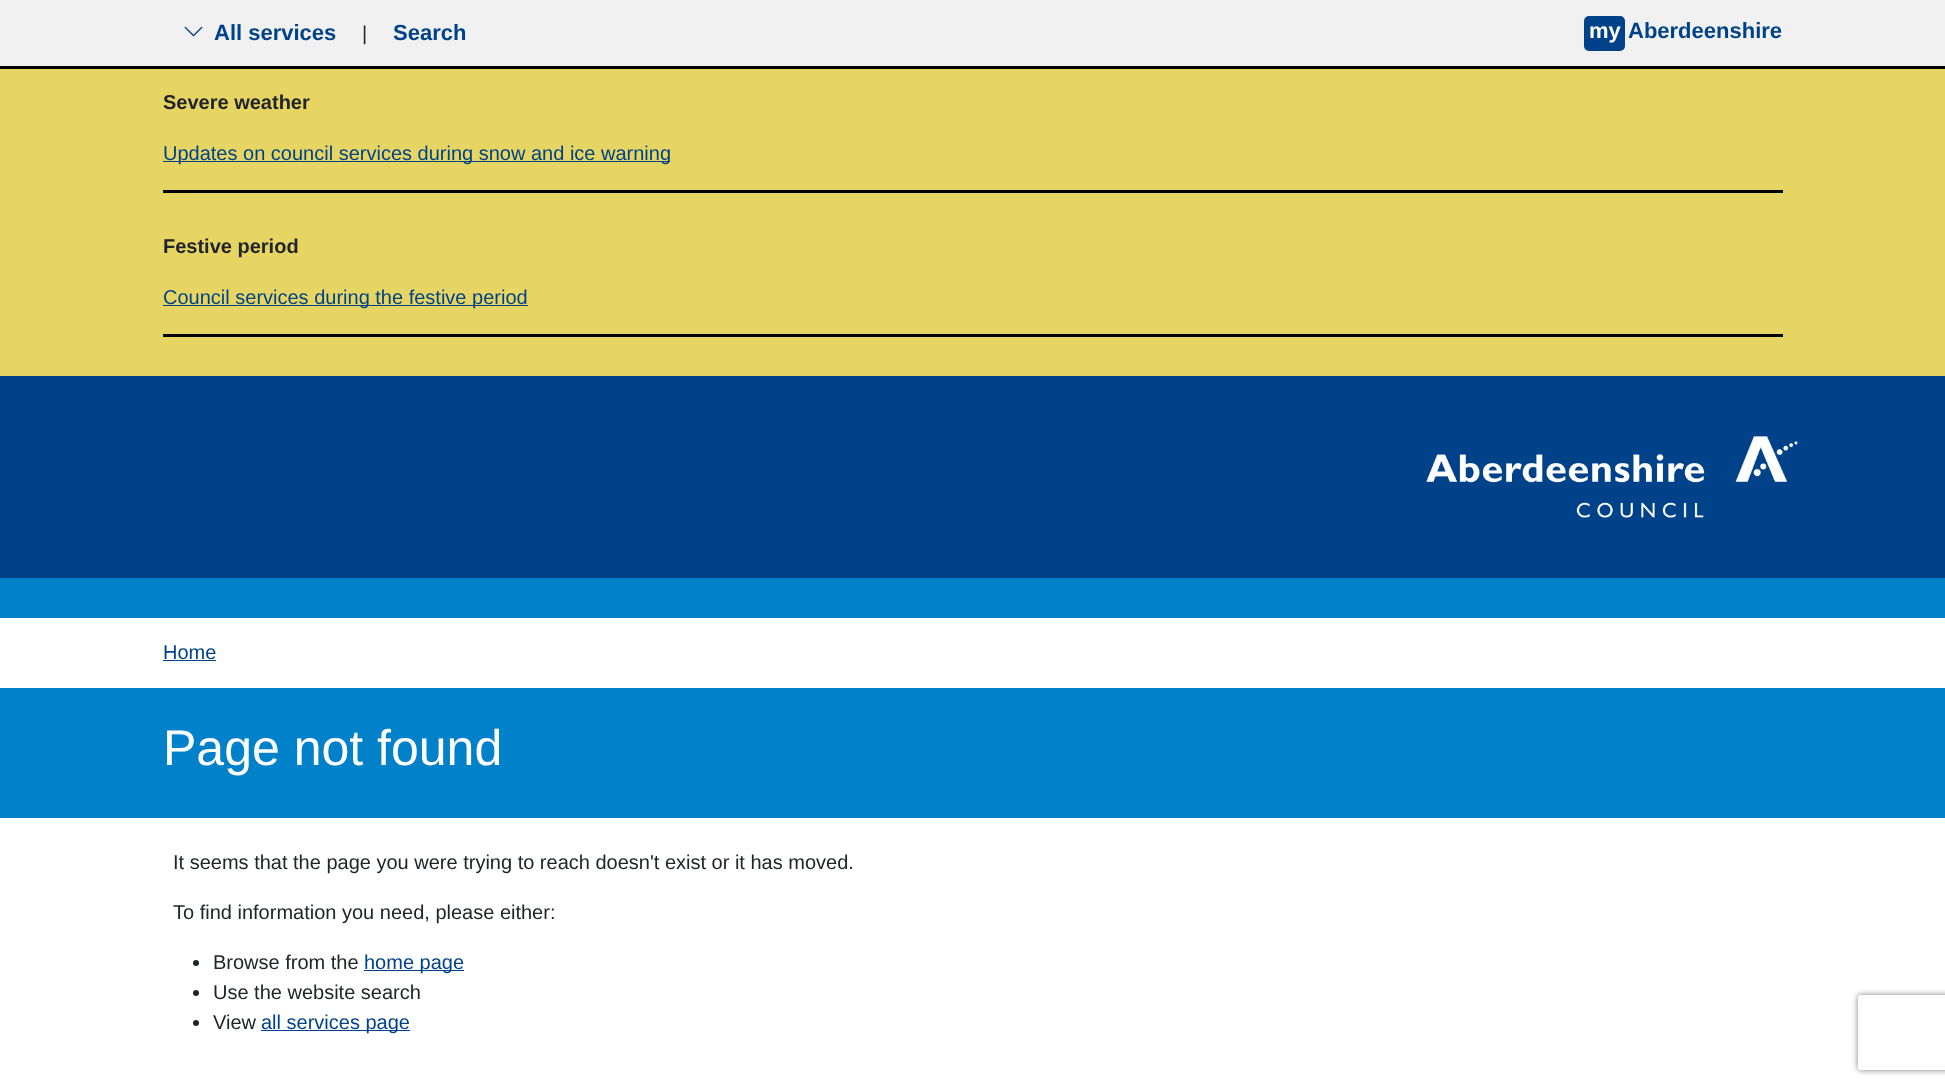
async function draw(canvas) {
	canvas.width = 1945;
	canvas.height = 1087;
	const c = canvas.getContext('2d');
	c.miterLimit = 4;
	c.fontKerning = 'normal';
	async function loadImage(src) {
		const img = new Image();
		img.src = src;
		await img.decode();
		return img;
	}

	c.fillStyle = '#fff';
	c.fillRect(0, 0, 1945, 1087);
	c.fillStyle = '#f1f1f1';
	c.fillRect(0, 0, 1945, 66);
	c.drawImage(await loadImage('img1.png'), 184, 26, 19, 11);
	c.font = 'bold 22px Liberation Sans';
	c.fillStyle = '#004289';
	c.fillText('All services', 214, 40);
	c.font = '20px Liberation Sans';
	c.fillStyle = '#212529';
	c.fillText('|', 362, 40);
	c.font = 'bold 22px Liberation Sans';
	c.fillStyle = '#004289';
	c.fillText('Search', 393, 40);
	c.beginPath();
	c.roundRect(1584, 16, 41, 35, 5);
	c.fill();
	c.fillStyle = '#fff';
	c.fillText('my', 1589, 38);
	c.fillStyle = '#004289';
	c.fillText('Aberdeenshire', 1628, 38);
	c.fillStyle = '#e6d563';
	c.fillRect(0, 69, 1945, 307);
	c.fillStyle = '#000';
	c.fillRect(0, 66, 1945, 3);
	c.font = 'bold 20px Liberation Sans';
	c.fillStyle = '#212529';
	c.fillText('Severe weather', 163, 109);
	c.fillStyle = '#004289';
	c.fillRect(163, 161, 507, 1);
	c.font = '20px Liberation Sans';
	c.fillText('Updates on council services during snow and ice warning', 163, 160);
	c.fillStyle = '#000';
	c.fillRect(163, 190, 1620, 3);
	c.font = 'bold 20px Liberation Sans';
	c.fillStyle = '#212529';
	c.fillText('Festive period', 163, 253);
	c.fillStyle = '#004289';
	c.fillRect(163, 305, 365, 1);
	c.font = '20px Liberation Sans';
	c.fillText('Council services during the festive period', 163, 304);
	c.fillStyle = '#000';
	c.fillRect(163, 334, 1620, 3);
	c.fillStyle = '#004289';
	c.fillRect(0, 376, 1945, 202);
	c.drawImage(await loadImage('img2.png'), 1426, 436, 372, 82);
	c.fillStyle = '#0081c9';
	c.fillRect(0, 578, 1945, 40);
	c.fillStyle = '#004289';
	c.fillText('Home', 163, 659);
	c.fillRect(163, 660, 53, 1);
	c.fillStyle = '#0081c9';
	c.fillRect(0, 688, 1945, 130);
	c.font = '50px Liberation Sans';
	c.fillStyle = '#fff';
	c.fillText('Page not found', 163, 765);
	c.font = '20px Liberation Sans';
	c.fillStyle = '#212529';
	c.fillText('It seems that the page you were trying to reach doesn\'t exist or it has moved.', 173, 869);
	c.fillText('To find information you need, please either:', 173, 919);
	c.beginPath();
	c.arc(196, 963, 3, 0, 2 * Math.PI);
	c.fill();
	c.fillText('Browse from the', 213, 969);
	c.fillStyle = '#004289';
	c.fillRect(364, 970, 100, 1);
	c.fillText('home page', 364, 969);
	c.fillStyle = '#212529';
	c.beginPath();
	c.arc(196, 993, 3, 0, 2 * Math.PI);
	c.fill();
	c.fillText('Use the website search', 213, 999);
	c.beginPath();
	c.arc(196, 1023, 3, 0, 2 * Math.PI);
	c.fill();
	c.fillText('View', 213, 1029);
	c.fillStyle = '#004289';
	c.fillRect(261, 1030, 149, 1);
	c.fillText('all services page', 261, 1029);
	c.save();
	c.beginPath();
	c.moveTo(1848, 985);
	c.lineTo(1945, 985);
	c.lineTo(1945, 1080);
	c.lineTo(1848, 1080);
	c.closePath();
	c.moveTo(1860.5, 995);
	c.lineTo(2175.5, 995);
	c.bezierCurveTo(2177, 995, 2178, 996, 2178, 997.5);
	c.lineTo(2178, 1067.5);
	c.bezierCurveTo(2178, 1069, 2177, 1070, 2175.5, 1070);
	c.lineTo(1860.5, 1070);
	c.bezierCurveTo(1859, 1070, 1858, 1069, 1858, 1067.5);
	c.lineTo(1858, 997.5);
	c.bezierCurveTo(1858, 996, 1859, 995, 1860.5, 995);
	c.closePath();
	c.clip('evenodd');
	c.fillStyle = '#808080';
	c.filter = 'blur(3px)';
	c.beginPath();
	c.roundRect(1858, 995, 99, 75, 2.5);
	c.fill();
	c.filter = 'none';
	c.restore();
}

draw(document.querySelector('canvas'));
